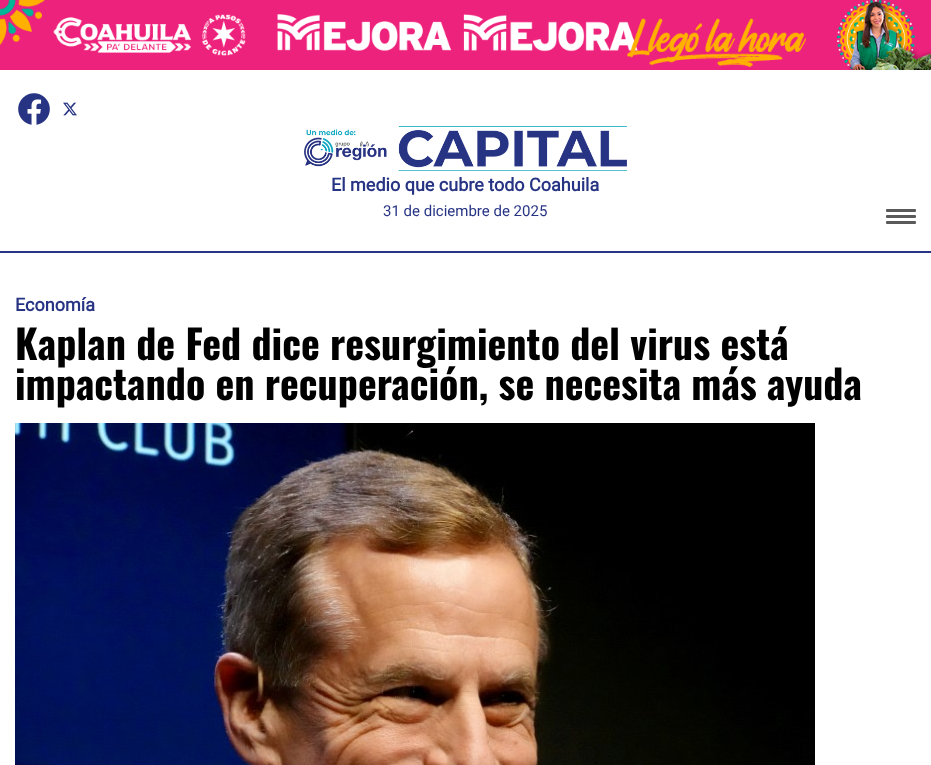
async function draw(canvas) {
	canvas.width = 931;
	canvas.height = 765;
	const c = canvas.getContext('2d');
	c.miterLimit = 4;
	c.fontKerning = 'normal';
	async function loadImage(src) {
		const img = new Image();
		img.src = src;
		await img.decode();
		return img;
	}

	c.fillStyle = '#fff';
	c.fillRect(0, 0, 931, 765);
	c.drawImage(await loadImage('img1.png'), 0, 0, 931, 70);
	c.drawImage(await loadImage('img2.png'), 18, 93, 32, 32);
	c.drawImage(await loadImage('img3.png'), 63, 102, 14, 14);
	c.drawImage(await loadImage('img4.png'), 304, 126, 323, 45);
	c.font = 'bold 18px Roboto';
	c.fillStyle = '#273484';
	c.fillText('El medio que cubre todo Coahuila', 331, 191);
	c.font = '15px Roboto';
	c.fillText('31 de diciembre de 2025', 383, 216);
	c.fillRect(0, 251, 931, 2);
	c.fillStyle = '#5a5a5a';
	c.beginPath();
	c.roundRect(886, 209, 30, 3, 1);
	c.fill();
	c.beginPath();
	c.roundRect(886, 215, 30, 3, 1);
	c.fill();
	c.beginPath();
	c.roundRect(886, 221, 30, 3, 1);
	c.fill();
	c.font = 'bold 18px Roboto';
	c.fillStyle = '#273484';
	c.fillText('Economía', 15, 311);
	c.font = 'bold 40px Oswald';
	c.fillStyle = '#000';
	c.fillText('Kaplan de Fed dice resurgimiento del virus está', 15, 360);
	c.fillText('impactando en recuperación, se necesita más ayuda', 15, 400);
	c.drawImage(await loadImage('img5.png'), 15, 423, 800, 342);
}

draw(document.querySelector('canvas'));
